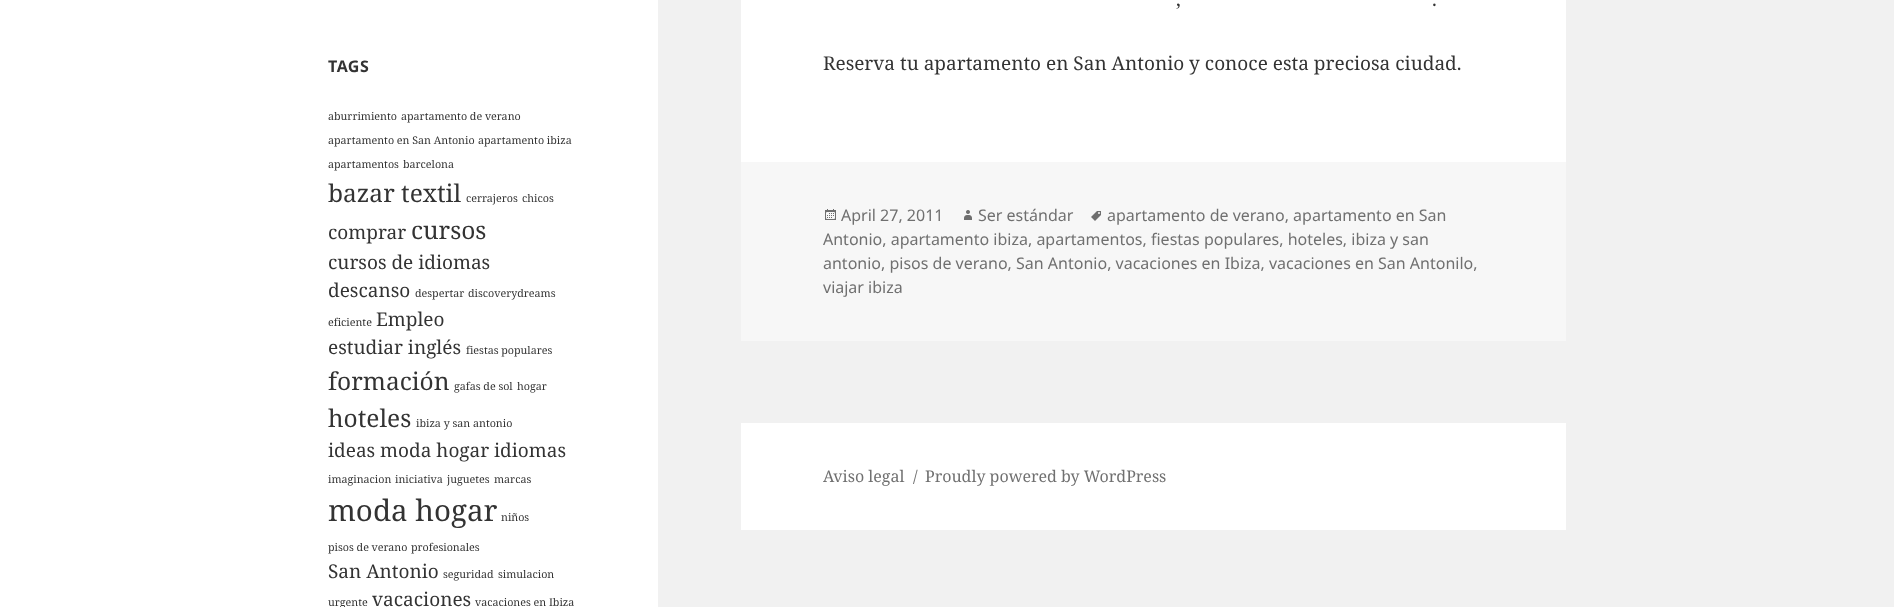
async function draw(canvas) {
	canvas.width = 1894;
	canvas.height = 607;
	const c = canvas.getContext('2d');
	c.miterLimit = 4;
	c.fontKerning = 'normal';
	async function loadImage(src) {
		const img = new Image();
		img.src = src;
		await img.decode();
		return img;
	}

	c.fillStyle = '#f1f1f1';
	c.fillRect(0, 0, 1894, 607);
	c.fillStyle = '#fff';
	c.fillRect(0, 0, 658, 607);
	c.letterSpacing = '0.5px';
	c.font = 'bold 16px Noto Sans';
	c.fillStyle = '#333';
	c.fillText('TAGS', 328, 72);
	c.letterSpacing = '0px';
	c.font = '10.7px Noto Serif';
	for (const [text, x, y] of [
		['aburrimiento', 328, 120],
		['apartamento de verano', 401, 120],
		['apartamento en San Antonio', 328, 144],
		['apartamento ibiza', 478, 144],
		['apartamentos', 328, 168],
		['barcelona', 403, 168],
	]) {
		c.fillText(text, x, y);
	}
	c.font = '24.5px Noto Serif';
	c.fillText('bazar textil', 328, 202);
	c.font = '10.7px Noto Serif';
	c.fillText('cerrajeros', 466, 202);
	c.fillText('chicos', 522, 202);
	c.font = '19px Noto Serif';
	c.fillText('comprar', 328, 239);
	c.font = '24.5px Noto Serif';
	c.fillText('cursos', 411, 239);
	c.font = '19px Noto Serif';
	c.fillText('cursos de idiomas', 328, 269);
	c.fillText('descanso', 328, 297);
	c.font = '10.7px Noto Serif';
	for (const [text, x, y] of [
		['despertar', 415, 297],
		['discoverydreams', 468, 297],
		['eficiente', 328, 326],
	]) {
		c.fillText(text, x, y);
	}
	c.font = '19px Noto Serif';
	c.fillText('Empleo', 376, 326);
	c.fillText('estudiar inglés', 328, 354);
	c.font = '10.7px Noto Serif';
	c.fillText('fiestas populares', 466, 354);
	c.font = '24.5px Noto Serif';
	c.fillText('formación', 328, 390);
	c.font = '10.7px Noto Serif';
	c.fillText('gafas de sol', 454, 390);
	c.fillText('hogar', 517, 390);
	c.font = '24.5px Noto Serif';
	c.fillText('hoteles', 328, 427);
	c.font = '10.7px Noto Serif';
	c.fillText('ibiza y san antonio', 416, 427);
	c.font = '19px Noto Serif';
	c.fillText('ideas moda hogar', 328, 457);
	c.fillText('idiomas', 494, 457);
	c.font = '10.7px Noto Serif';
	for (const [text, x, y] of [
		['imaginacion', 328, 483],
		['iniciativa', 395, 483],
		['juguetes', 447, 483],
		['marcas', 494, 483],
	]) {
		c.fillText(text, x, y);
	}
	c.font = '29.5px Noto Serif';
	c.fillText('moda hogar', 328, 521);
	c.font = '10.7px Noto Serif';
	for (const [text, x, y] of [
		['niños', 501, 521],
		['pisos de verano', 328, 551],
		['profesionales', 411, 551],
	]) {
		c.fillText(text, x, y);
	}
	c.font = '19px Noto Serif';
	c.fillText('San Antonio', 328, 578);
	c.font = '10.7px Noto Serif';
	for (const [text, x, y] of [
		['seguridad', 443, 578],
		['simulacion', 498, 578],
		['urgente', 328, 606],
	]) {
		c.fillText(text, x, y);
	}
	c.font = '19px Noto Serif';
	c.fillText('vacaciones', 372, 606);
	c.font = '10.7px Noto Serif';
	c.fillText('vacaciones en Ibiza', 475, 606);
	c.fillStyle = '#fff';
	c.fillRect(741, 0, 825, 162);
	c.font = '19px Noto Serif';
	c.fillStyle = '#333';
	for (const [text, x, y] of [
		[',', 1176, 6],
		['.', 1432, 6],
		['Reserva tu apartamento en San Antonio y conoce esta preciosa ciudad.', 823, 70],
	]) {
		c.fillText(text, x, y);
	}
	c.fillStyle = '#f7f7f7';
	c.fillRect(741, 162, 825, 179);
	c.drawImage(await loadImage('img1.png'), 1091, 211, 10, 10);
	c.font = '16px Noto Sans';
	c.fillStyle = '#707070';
	for (const [text, x, y] of [
		['apartamento de verano, apartamento en San', 1107, 221],
		['Antonio, apartamento ibiza, apartamentos, fiestas populares, hoteles, ibiza y san', 823, 245],
		['antonio, pisos de verano, San Antonio, vacaciones en Ibiza, vacaciones en San Antonilo,', 823, 269],
		['viajar ibiza', 823, 293],
	]) {
		c.fillText(text, x, y);
	}
	c.drawImage(await loadImage('img2.png'), 825, 209, 11, 11);
	c.fillText('April 27, 2011', 841, 221);
	c.drawImage(await loadImage('img3.png'), 964, 210, 8, 10);
	c.fillText('Ser estándar', 978, 221);
	c.fillStyle = '#fff';
	c.fillRect(741, 423, 825, 107);
	c.font = '16px Noto Serif';
	c.fillStyle = '#707070';
	for (const [text, x, y] of [
		['Aviso legal', 823, 482],
		['/', 913, 482],
		['Proudly powered by WordPress', 925, 482],
	]) {
		c.fillText(text, x, y);
	}
}

draw(document.querySelector('canvas'));
